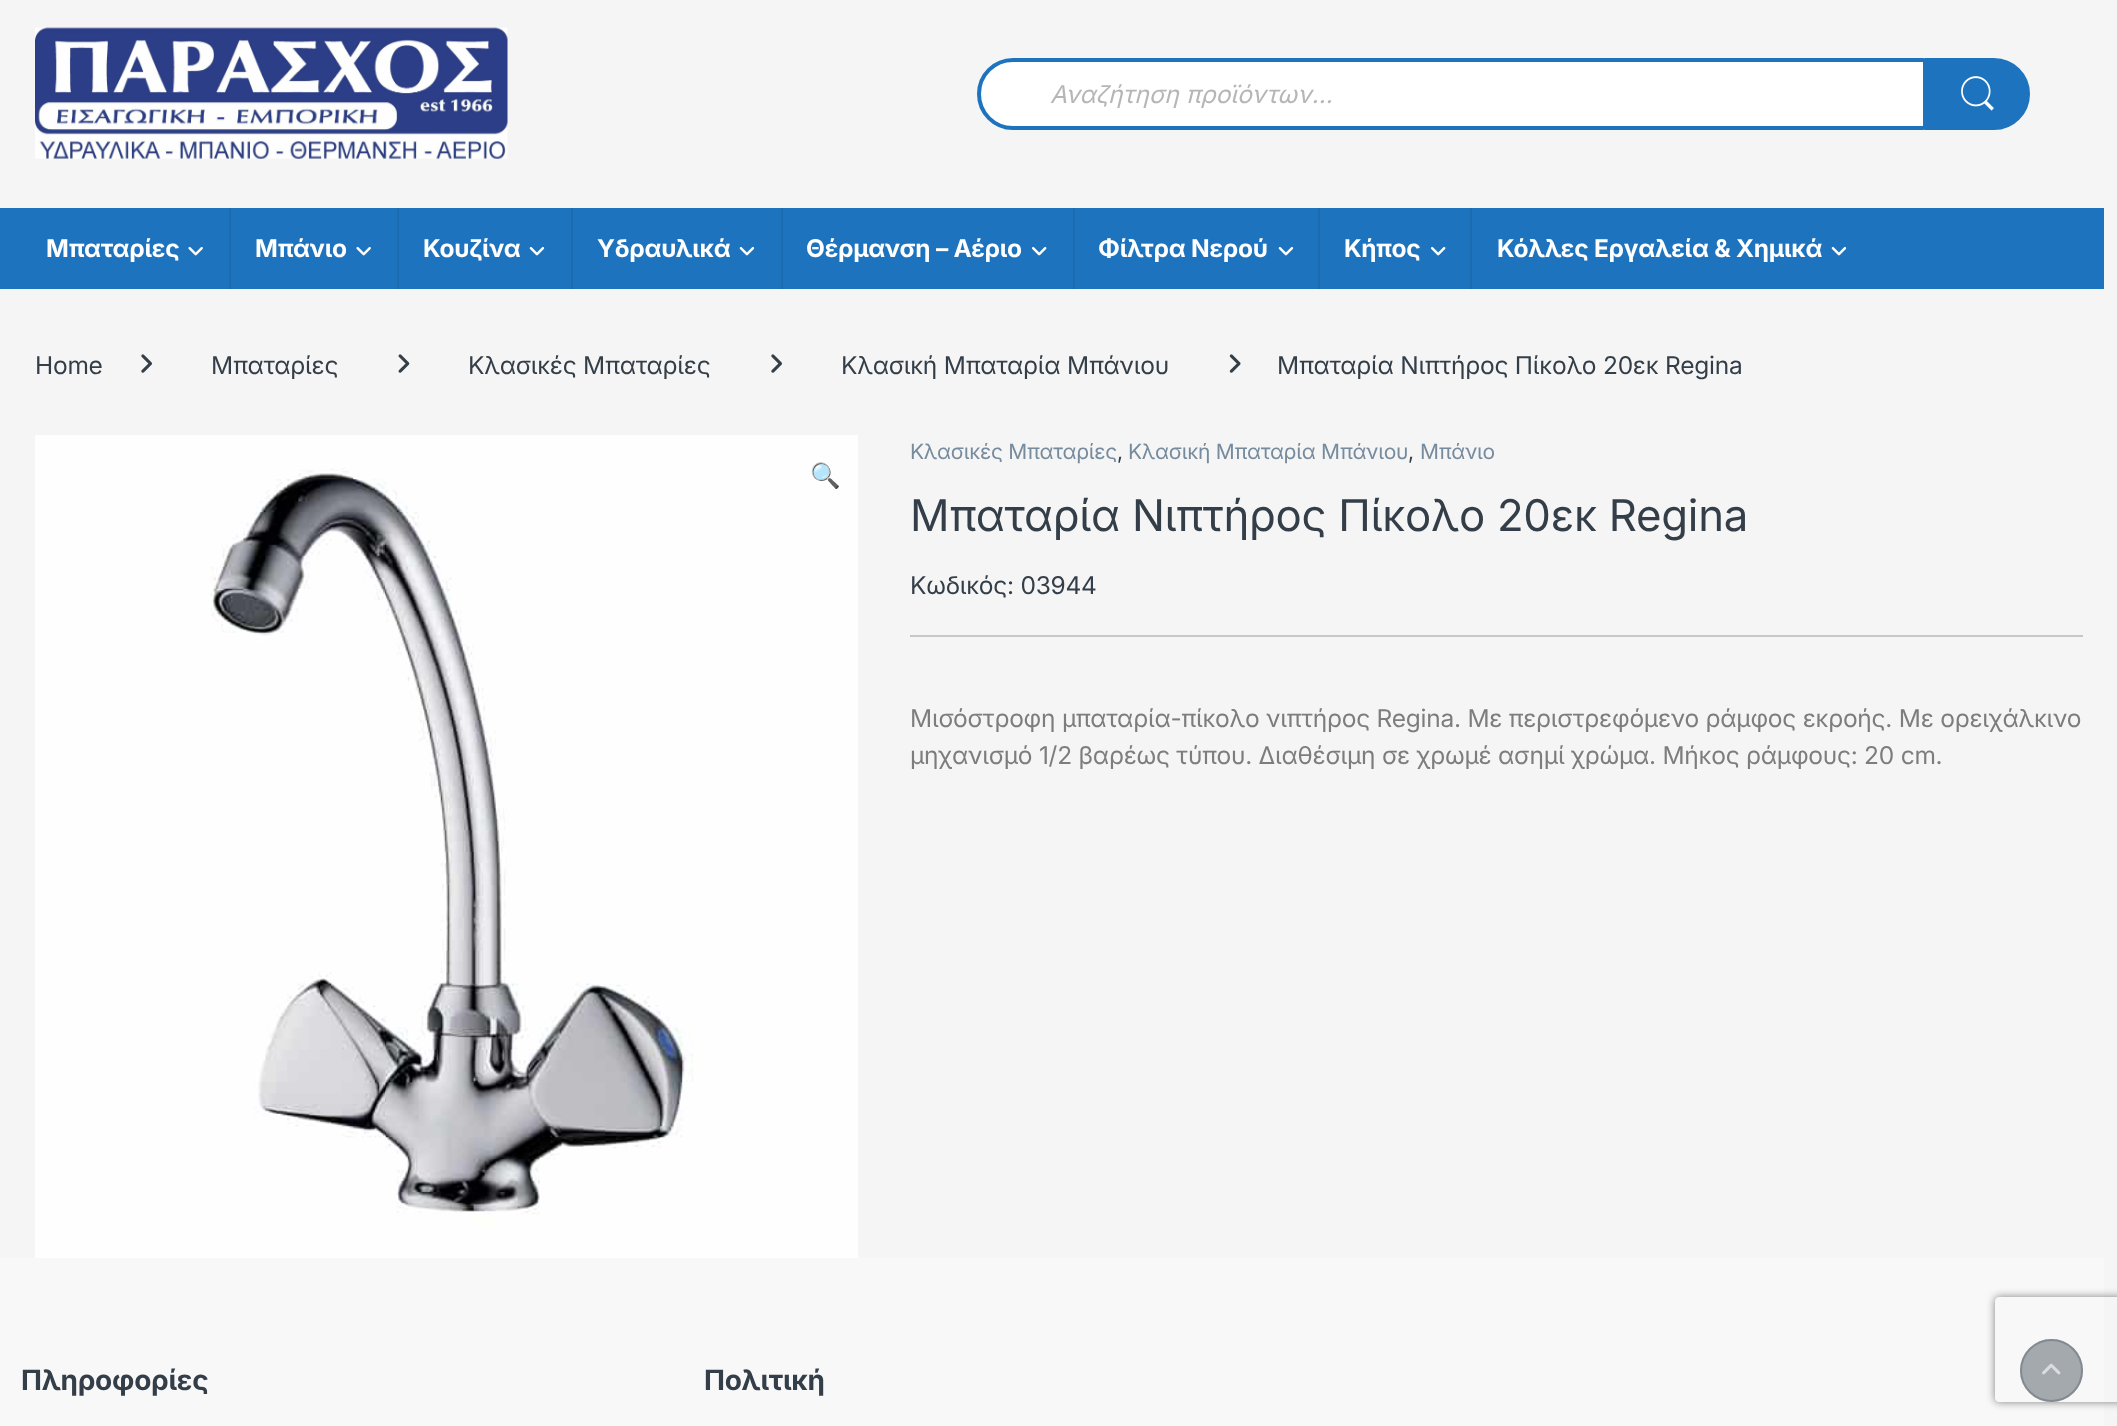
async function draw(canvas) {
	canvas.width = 2117;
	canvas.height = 1426;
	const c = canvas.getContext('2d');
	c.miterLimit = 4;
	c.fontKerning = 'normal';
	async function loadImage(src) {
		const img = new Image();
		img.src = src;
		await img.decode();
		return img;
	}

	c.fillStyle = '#f5f5f5';
	c.fillRect(0, 0, 2117, 1426);
	c.drawImage(await loadImage('img1.png'), 35, 27, 473, 132);
	c.fillStyle = '#fff';
	c.beginPath();
	c.roundRect(979, 60, 946, 68, [34, 2, 2, 34]);
	c.fill();
	c.strokeStyle = '#1e73be';
	c.lineWidth = 4;
	c.stroke();
	c.font = 'italic 24.5px Inter';
	c.fillStyle = '#b6b6b6';
	c.fillText('Αναζήτηση προϊόντων...', 1050, 103);
	c.fillStyle = '#1e73be';
	c.beginPath();
	c.roundRect(1927, 60, 101, 68, [0, 34, 34, 0]);
	c.fill();
	c.stroke();
	c.drawImage(await loadImage('img2.png'), 1961, 76, 33, 35);
	c.fillRect(0, 208, 2104, 81);
	c.letterSpacing = '-0.25px';
	c.font = 'bold 24.5px Inter';
	c.fillStyle = '#fff';
	c.fillText('Μπαταρίες', 46, 257);
	c.drawImage(await loadImage('img3.png'), 188, 247, 15, 9);
	c.fillStyle = '#1c6aaf';
	c.fillRect(229, 208, 2, 81);
	c.fillStyle = '#fff';
	c.fillText('Μπάνιο', 255, 257);
	c.drawImage(await loadImage('img3.png'), 356, 247, 15, 9);
	c.fillStyle = '#1c6aaf';
	c.fillRect(397, 208, 2, 81);
	c.fillStyle = '#fff';
	c.fillText('Κουζίνα', 423, 257);
	c.drawImage(await loadImage('img4.png'), 529, 247, 16, 9);
	c.fillStyle = '#1c6aaf';
	c.fillRect(571, 208, 2, 81);
	c.fillStyle = '#fff';
	c.fillText('Υδραυλικά', 597, 257);
	c.drawImage(await loadImage('img4.png'), 739, 247, 16, 9);
	c.fillStyle = '#1c6aaf';
	c.fillRect(781, 208, 2, 81);
	c.fillStyle = '#fff';
	c.fillText('Θέρμανση – Αέριο', 806, 257);
	c.drawImage(await loadImage('img5.png'), 1032, 247, 15, 9);
	c.fillStyle = '#1c6aaf';
	c.fillRect(1073, 208, 2, 81);
	c.fillStyle = '#fff';
	c.fillText('Φίλτρα Νερού', 1098, 257);
	c.drawImage(await loadImage('img4.png'), 1278, 247, 16, 9);
	c.fillStyle = '#1c6aaf';
	c.fillRect(1318, 208, 2, 81);
	c.fillStyle = '#fff';
	c.fillText('Κήπος', 1344, 257);
	c.drawImage(await loadImage('img5.png'), 1431, 247, 15, 9);
	c.fillStyle = '#1c6aaf';
	c.fillRect(1470, 208, 2, 81);
	c.fillStyle = '#fff';
	c.fillText('Κόλλες Εργαλεία & Χημικά', 1497, 257);
	c.drawImage(await loadImage('img4.png'), 1831, 247, 16, 9);
	c.font = '24.5px Inter';
	c.fillStyle = '#333e48';
	c.fillText('Home', 35, 374);
	c.drawImage(await loadImage('img6.png'), 141, 354, 11, 19);
	c.fillText('Μπαταρίες', 211, 374);
	c.drawImage(await loadImage('img7.png'), 398, 354, 12, 19);
	c.fillText('Κλασικές Μπαταρίες', 468, 374);
	c.drawImage(await loadImage('img6.png'), 771, 354, 11, 19);
	c.fillText('Κλασική Μπαταρία Μπάνιου', 841, 374);
	c.drawImage(await loadImage('img8.png'), 1229, 354, 12, 19);
	c.fillText('Μπαταρία Νιπτήρος Πίκολο 20εκ Regina', 1277, 374);
	c.drawImage(await loadImage('img9.png'), 35, 435, 823, 823);
	c.font = '24.5px Noto Color Emoji';
	c.fillText('🔍', 810, 484);
	c.font = '21px Inter';
	c.fillStyle = '#768b9e';
	c.fillText('Κλασικές Μπαταρίες', 910, 459);
	c.fillStyle = '#333e48';
	c.fillText(',', 1117, 459);
	c.fillStyle = '#768b9e';
	c.fillText('Κλασική Μπαταρία Μπάνιου', 1128, 459);
	c.fillStyle = '#333e48';
	c.fillText(',', 1408, 459);
	c.fillStyle = '#768b9e';
	c.fillText('Μπάνιο', 1420, 459);
	c.font = '43.75px Inter';
	c.fillStyle = '#333e48';
	c.fillText('Μπαταρία Νιπτήρος Πίκολο 20εκ Regina', 910, 531);
	c.font = '24.5px Inter';
	c.fillText('Κωδικός: 03944', 910, 594);
	c.fillStyle = '#c5c7ca';
	c.fillRect(910, 635, 1173, 2);
	c.fillStyle = '#7d7d7d';
	c.fillText('Μισόστροφη μπαταρία-πίκολο νιπτήρος Regina. Με περιστρεφόμενο ράμφος εκροής. Με ορειχάλκινο', 910, 727);
	c.fillText('μηχανισμό 1/2 βαρέως τύπου. Διαθέσιμη σε χρωμέ ασημί χρώμα. Μήκος ράμφους: 20 cm.', 910, 764);
	c.fillStyle = '#f8f8f8';
	c.fillRect(0, 1258, 2104, 168);
	c.font = 'bold 28px Inter';
	c.fillStyle = '#333e48';
	c.fillText('Πληροφορίες', 21, 1390);
	c.fillText('Πολιτική', 704, 1390);
	c.save();
	c.beginPath();
	c.moveTo(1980, 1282);
	c.lineTo(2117, 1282);
	c.lineTo(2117, 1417);
	c.lineTo(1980, 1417);
	c.closePath();
	c.moveTo(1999, 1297);
	c.lineTo(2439, 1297);
	c.bezierCurveTo(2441, 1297, 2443, 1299, 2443, 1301);
	c.lineTo(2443, 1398);
	c.bezierCurveTo(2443, 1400, 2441, 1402, 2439, 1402);
	c.lineTo(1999, 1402);
	c.bezierCurveTo(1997, 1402, 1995, 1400, 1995, 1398);
	c.lineTo(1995, 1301);
	c.bezierCurveTo(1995, 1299, 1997, 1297, 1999, 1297);
	c.closePath();
	c.clip('evenodd');
	c.fillStyle = '#808080';
	c.filter = 'blur(4.5px)';
	c.beginPath();
	c.roundRect(1995, 1297, 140, 105, 4);
	c.fill();
	c.filter = 'none';
	c.restore();
	c.fillStyle = '#6c757d99';
	c.beginPath();
	c.arc(2051.5, 1370.5, 31.5, 0, 2 * Math.PI);
	c.fill();
	c.beginPath();
	c.arc(2051.5, 1370.5, 30.5, 0, 2 * Math.PI);
	c.strokeStyle = '#6c757d99';
	c.lineWidth = 2;
	c.stroke();
	c.drawImage(await loadImage('img10.png'), 2042, 1363, 19, 12);
}

draw(document.querySelector('canvas'));
